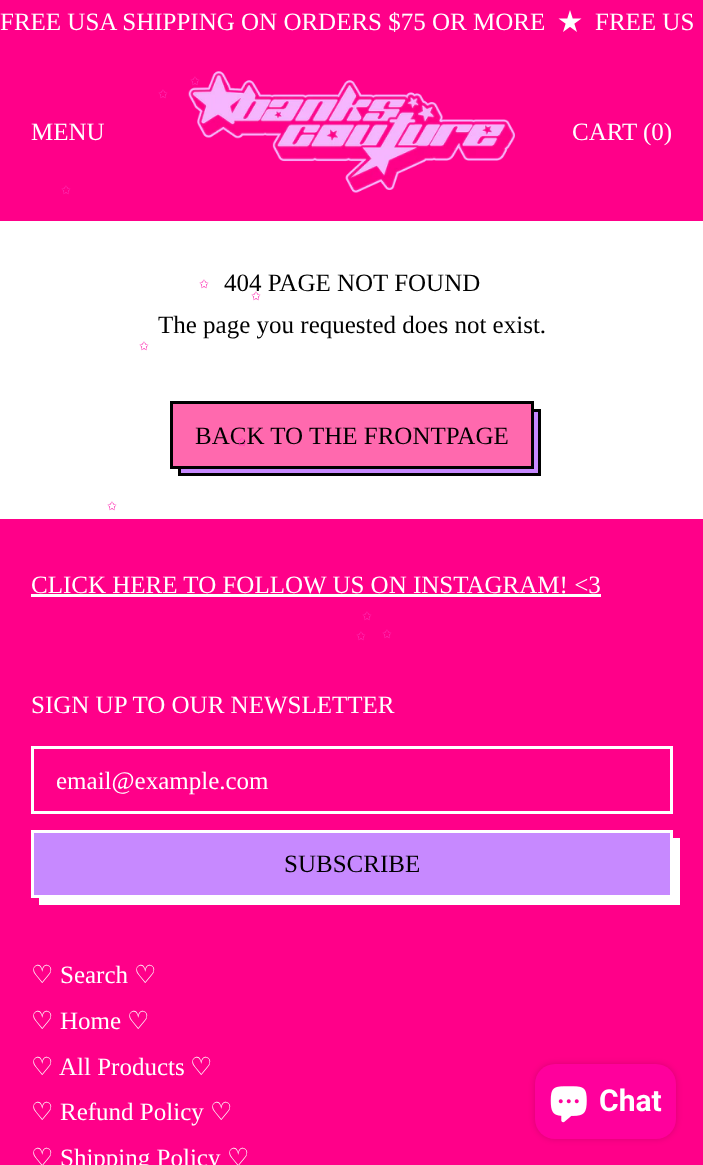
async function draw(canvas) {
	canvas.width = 703;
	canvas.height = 1165;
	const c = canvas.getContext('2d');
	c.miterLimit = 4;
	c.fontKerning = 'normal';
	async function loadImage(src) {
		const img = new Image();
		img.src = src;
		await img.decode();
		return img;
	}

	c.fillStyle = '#fff';
	c.fillRect(0, 0, 703, 1165);
	c.fillStyle = '#ff0089';
	c.fillRect(0, 0, 703, 221);
	c.font = '25px Liberation Serif';
	c.fillStyle = '#fff';
	c.fillText('FREE USA SHIPPING ON ORDERS $75 OR MORE', 0, 30);
	c.beginPath();
	c.moveTo(563, 32);
	c.lineTo(570, 10);
	c.lineTo(577, 32);
	c.lineTo(558.5, 18.5);
	c.lineTo(581.5, 18.5);
	c.fill();
	c.fillText('FREE US', 595, 30);
	c.drawImage(await loadImage('img1.png'), 188, 71, 327, 122);
	c.font = '12px DejaVu Sans';
	c.fillStyle = '#fd2eb2';
	for (const [text, x, y] of [
		['✩', 190, 85],
		['✩', 158, 98],
		['✩', 61, 194],
		['✩', 199, 288],
		['✩', 251, 300],
		['✩', 139, 350],
	]) {
		c.fillText(text, x, y);
	}
	c.fillStyle = '#c789ff';
	c.beginPath();
	c.rect(179.5, 410.5, 360, 64);
	c.fill();
	c.strokeStyle = '#000';
	c.lineWidth = 3;
	c.stroke();
	c.fillStyle = '#ff69ae';
	c.beginPath();
	c.rect(171.5, 402.5, 361, 65);
	c.fill();
	c.stroke();
	c.font = '25px Liberation Serif';
	c.fillStyle = '#000';
	c.fillText('BACK TO THE FRONTPAGE', 195, 444);
	c.font = '12px DejaVu Sans';
	c.fillStyle = '#fd2eb2';
	c.fillText('✩', 237, 446);
	c.fillText('✩', 107, 510);
	c.fillStyle = '#ff0089';
	c.fillRect(0, 519, 703, 646);
	c.fillStyle = '#fd2eb2';
	for (const [text, x, y] of [
		['✩', 362, 620],
		['✩', 356, 640],
		['✩', 382, 638],
	]) {
		c.fillText(text, x, y);
	}
	c.font = '25px Liberation Serif';
	c.fillStyle = '#fff';
	c.fillText('MENU', 31, 140);
	c.fillText('CART (0)', 572, 140);
	c.fillStyle = '#000';
	c.fillText('404 PAGE NOT FOUND', 224, 291);
	c.fillText('The page you requested does not exist.', 158, 333);
	c.fillStyle = '#fff';
	c.fillText('CLICK HERE TO FOLLOW US ON INSTAGRAM! <3', 31, 593);
	c.fillRect(31, 594, 570, 3);
	c.fillText('SIGN UP TO OUR NEWSLETTER', 31, 713);
	c.strokeStyle = '#fff';
	c.strokeRect(32.5, 747.5, 639, 65);
	c.fillText('email@example.com', 56, 789);
	c.fillRect(39, 838, 641, 67);
	c.fillStyle = '#c789ff';
	c.beginPath();
	c.rect(32.5, 831.5, 639, 65);
	c.fill();
	c.stroke();
	c.fillStyle = '#000';
	c.fillText('SUBSCRIBE', 284, 872);
	c.font = '25px DejaVu Sans';
	c.fillStyle = '#fff';
	c.fillText('♡', 31, 983);
	c.font = '25px Liberation Serif';
	c.fillText('Search', 60, 983);
	c.font = '25px DejaVu Sans';
	c.fillText('♡', 134, 983);
	c.fillText('♡', 31, 1029);
	c.font = '25px Liberation Serif';
	c.fillText('Home', 60, 1029);
	c.font = '25px DejaVu Sans';
	c.fillText('♡', 127, 1029);
	c.fillText('♡', 31, 1075);
	c.font = '25px Liberation Serif';
	c.fillText('All Products', 59, 1075);
	c.font = '25px DejaVu Sans';
	c.fillText('♡', 190, 1075);
	c.fillText('♡', 31, 1120);
	c.font = '25px Liberation Serif';
	c.fillText('Refund Policy', 60, 1120);
	c.font = '25px DejaVu Sans';
	c.fillText('♡', 210, 1120);
	c.fillText('♡', 31, 1166);
	c.font = '25px Liberation Serif';
	c.fillText('Shipping Policy', 60, 1166);
	c.font = '25px DejaVu Sans';
	c.fillText('♡', 227, 1166);
	c.fillStyle = '#00000026';
	c.filter = 'blur(3px)';
	c.beginPath();
	c.roundRect(535, 1064, 141, 75, 20);
	c.fill();
	c.filter = 'none';
	c.fillStyle = '#ff009c';
	c.beginPath();
	c.roundRect(535, 1064, 141, 75, 20);
	c.fill();
	c.drawImage(await loadImage('img2.png'), 550, 1086, 37, 37);
	c.font = 'bold 30px Roboto';
	c.fillStyle = '#fff';
	c.fillText('Chat', 599, 1111);
}

draw(document.querySelector('canvas'));
